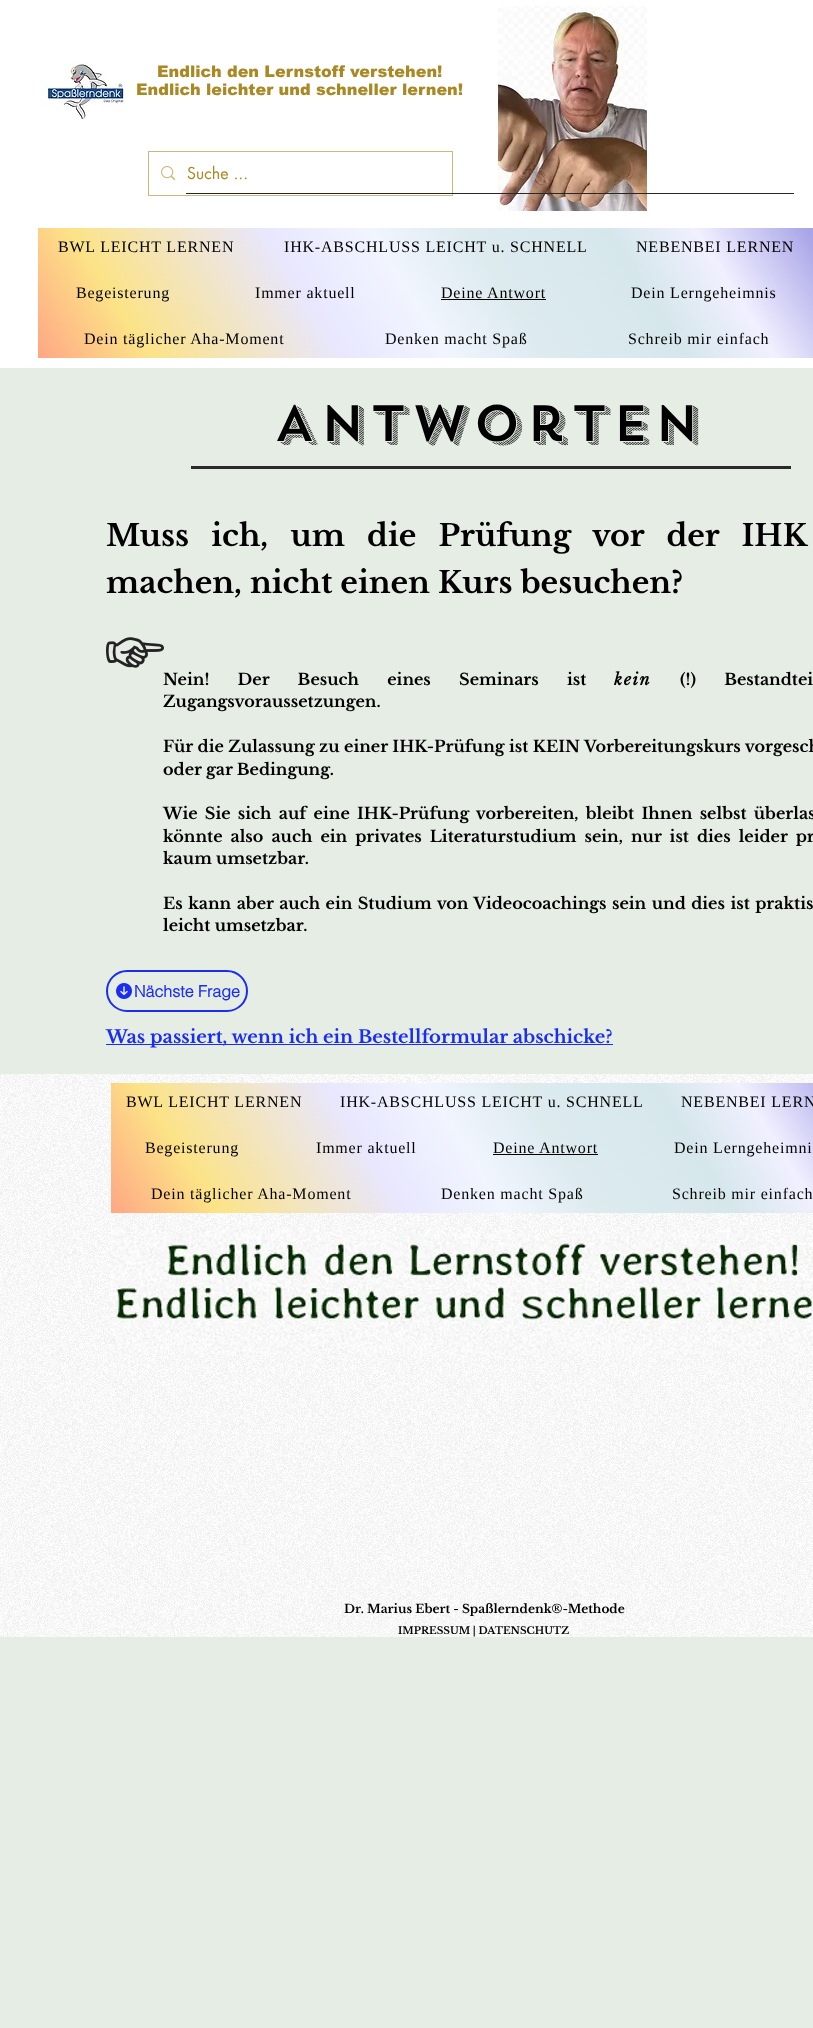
async function draw(canvas) {
	canvas.width = 813;
	canvas.height = 2028;
	const c = canvas.getContext('2d');
	c.miterLimit = 4;
	c.fontKerning = 'normal';
	async function loadImage(src) {
		const img = new Image();
		img.src = src;
		await img.decode();
		return img;
	}
	let gradient;

	c.fillStyle = '#e6ede5';
	c.fillRect(0, 0, 813, 2028);
	c.fillStyle = '#fff';
	c.fillRect(0, 0, 813, 368);
	c.drawImage(await loadImage('img1.png'), 41, 63, 88, 56);
	c.font = '900 16px arial';
	c.fillStyle = '#aa8924';
	c.fillText('Endlich den Lernstoff verstehen!', 157, 77);
	c.fillText('Endlich leichter und schneller lernen!', 136, 95);
	c.drawImage(await loadImage('img2.png'), 498, 6, 149, 205);
	c.strokeStyle = '#ccb87c';
	c.strokeRect(148.5, 151.5, 304, 44);
	c.drawImage(await loadImage('img3.png'), 161, 166, 14, 15);
	c.font = '16px futura';
	c.fillText('Suche ...', 187, 179);
	c.fillStyle = '#282626';
	c.fillRect(186, 193, 608, 1);
	gradient = c.createLinearGradient(118, 486, 735, 100);
	gradient.addColorStop(0, '#ffa685');
	gradient.addColorStop(0.13, '#fce387');
	gradient.addColorStop(0.36, '#e8e7ff');
	gradient.addColorStop(0.48, '#f1f5fe');
	gradient.addColorStop(0.59, '#ddebef');
	gradient.addColorStop(0.76, '#d6e7ec');
	gradient.addColorStop(0.86, '#f1f0ff');
	gradient.addColorStop(0.99, '#a9a5e8');
	c.fillStyle = gradient;
	c.fillRect(38, 228, 775, 130);
	c.letterSpacing = '0.8px';
	c.font = '16px Liberation Serif';
	c.fillStyle = '#000';
	for (const [text, x, y] of [
		['BWL LEICHT LERNEN', 58, 252],
		['IHK-ABSCHLUSS LEICHT u. SCHNELL', 284, 252],
		['NEBENBEI LERNEN', 636, 252],
		['Begeisterung', 76, 298],
		['Immer aktuell', 255, 298],
		['Deine Antwort', 441, 298],
	]) {
		c.fillText(text, x, y);
	}
	c.fillRect(441, 299, 105, 1);
	for (const [text, x, y] of [
		['Dein Lerngeheimnis', 631, 298],
		['Dein täglicher Aha-Moment', 84, 344],
		['Denken macht Spaß', 385, 344],
		['Schreib mir einfach', 628, 344],
	]) {
		c.fillText(text, x, y);
	}
	c.letterSpacing = '5px';
	c.font = '500 51px "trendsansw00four"';
	c.fillText('Antworten', 274, 441);
	c.fillStyle = '#2a2a2a';
	c.fillRect(191, 466, 600, 3);
	c.letterSpacing = '0px';
	c.wordSpacing = '14.25px';
	c.font = 'bold 30px Libre Baskerville';
	c.fillStyle = '#000';
	c.fillText('Muss ich, um die Prüfung vor der IHK', 106, 546);
	c.wordSpacing = '0px';
	c.fillText('machen, nicht einen Kurs besuchen?', 106, 593);
	c.drawImage(await loadImage('img4.png'), 106, 637, 58, 31);
	c.wordSpacing = '24px';
	c.font = 'bold 16px Libre Baskerville';
	c.fillText('Nein! Der Besuch eines Seminars ist', 163, 685);
	c.letterSpacing = '1.5px';
	c.wordSpacing = '0px';
	c.font = 'italic bold 16px Libre Baskerville';
	c.fillText('kein', 614, 685);
	c.letterSpacing = '0px';
	c.wordSpacing = '24px';
	c.font = 'bold 16px Libre Baskerville';
	c.fillText('(!) Bestandtei', 680, 685);
	c.wordSpacing = '0px';
	c.fillText('Zugangsvoraussetzungen.', 163, 707);
	c.wordSpacing = '0.25px';
	c.fillText('Für die Zulassung zu einer IHK-Prüfung ist KEIN Vorbereitungskurs vorgesch', 163, 752);
	c.wordSpacing = '0px';
	c.fillText('oder gar Bedingung.', 163, 775);
	c.wordSpacing = '3px';
	c.fillText('Wie Sie sich auf eine IHK-Prüfung vorbereiten, bleibt Ihnen selbst überlas', 163, 819);
	c.wordSpacing = '3.75px';
	c.fillText('könnte also auch ein privates Literaturstudium sein, nur ist dies leider pr', 163, 842);
	c.wordSpacing = '0px';
	c.fillText('kaum umsetzbar.', 163, 864);
	c.wordSpacing = '1.2px';
	c.fillText('Es kann aber auch ein Studium von Videocoachings sein und dies ist praktis', 163, 909);
	c.wordSpacing = '0px';
	c.fillText('leicht umsetzbar.', 163, 931);
	c.beginPath();
	c.roundRect(107, 971, 140, 40, 20);
	c.strokeStyle = '#1a2df3';
	c.lineWidth = 2;
	c.stroke();
	c.drawImage(await loadImage('img5.png'), 116, 983, 16, 16);
	c.font = 'bold 16px helvetica';
	c.fillStyle = '#1a2df3';
	c.fillText('Nächste Frage', 134, 997);
	c.fillRect(106, 1044, 507, 1);
	c.font = 'bold 18px Libre Baskerville';
	c.fillText('Was passiert, wenn ich ein Bestellformular abschicke?', 106, 1043);
	c.fillStyle = '#fff';
	c.fillRect(0, 1074, 813, 563);
	c.drawImage(await loadImage('img6.png'), 0, 1074, 813, 563);
	gradient = c.createLinearGradient(186, 1333, 779, 963);
	gradient.addColorStop(0, '#ffa685');
	gradient.addColorStop(0.13, '#fce387');
	gradient.addColorStop(0.36, '#e8e7ff');
	gradient.addColorStop(0.48, '#f1f5fe');
	gradient.addColorStop(0.59, '#ddebef');
	gradient.addColorStop(0.76, '#d6e7ec');
	gradient.addColorStop(0.86, '#f1f0ff');
	gradient.addColorStop(0.99, '#a9a5e8');
	c.fillStyle = gradient;
	c.fillRect(111, 1083, 702, 130);
	c.letterSpacing = '0.8px';
	c.font = '16px Liberation Serif';
	c.fillStyle = '#000';
	for (const [text, x, y] of [
		['BWL LEICHT LERNEN', 126, 1107],
		['IHK-ABSCHLUSS LEICHT u. SCHNELL', 340, 1107],
		['NEBENBEI LERN', 681, 1107],
		['Begeisterung', 145, 1153],
		['Immer aktuell', 316, 1153],
		['Deine Antwort', 493, 1153],
	]) {
		c.fillText(text, x, y);
	}
	c.fillRect(493, 1154, 105, 1);
	for (const [text, x, y] of [
		['Dein Lerngeheimni', 674, 1153],
		['Dein täglicher Aha-Moment', 151, 1199],
		['Denken macht Spaß', 441, 1199],
		['Schreib mir einfach', 672, 1199],
	]) {
		c.fillText(text, x, y);
	}
	c.drawImage(await loadImage('img7.png'), 111, 1230, 702, 125);
	c.letterSpacing = '0px';
	c.font = 'bold 12px Libre Baskerville';
	c.fillText('Dr. Marius Ebert - Spaßlerndenk®-Methode', 344, 1613);
	c.font = 'bold 10px Libre Baskerville';
	c.fillText('IMPRESSUM | DATENSCHUTZ', 398, 1634);
}

draw(document.querySelector('canvas'));
